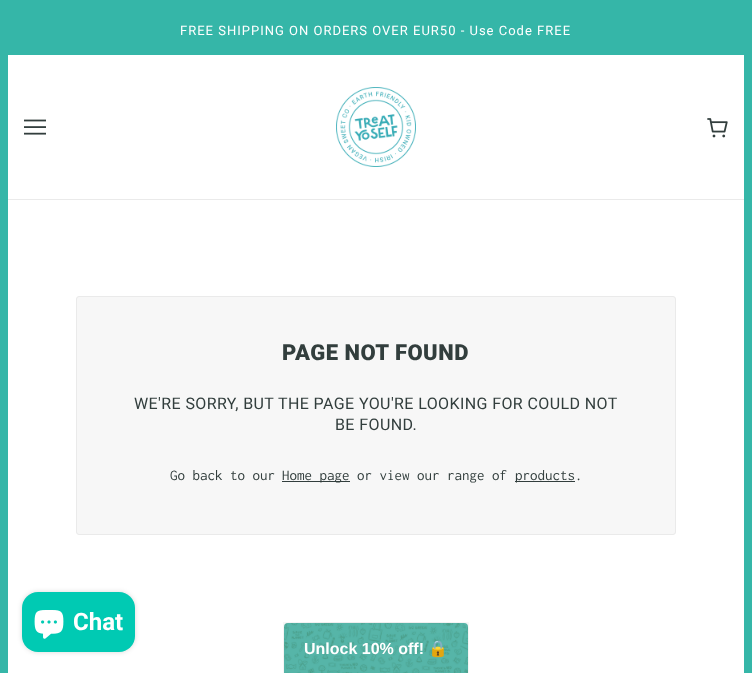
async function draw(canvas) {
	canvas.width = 752;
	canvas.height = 673;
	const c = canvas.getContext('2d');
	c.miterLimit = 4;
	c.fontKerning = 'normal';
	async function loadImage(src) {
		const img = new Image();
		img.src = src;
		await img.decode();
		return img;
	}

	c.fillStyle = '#fff';
	c.fillRect(0, 0, 752, 673);
	c.strokeStyle = '#35b6a8';
	c.lineWidth = 8;
	c.strokeRect(4, 4, 744, 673);
	c.fillStyle = '#35b6a8';
	c.fillRect(8, 8, 736, 47);
	c.letterSpacing = '1px';
	c.font = '13px Roboto';
	c.fillStyle = '#fff';
	c.fillText('FREE SHIPPING ON ORDERS OVER EUR50 - Use Code FREE', 180, 35);
	c.fillStyle = '#eaeaea';
	c.fillRect(8, 199, 736, 1);
	c.drawImage(await loadImage('img1.png'), 24, 119, 22, 16);
	c.drawImage(await loadImage('img2.png'), 336, 87, 80, 80);
	c.drawImage(await loadImage('img3.png'), 707, 118, 21, 20);
	c.fillStyle = '#f7f7f7';
	c.beginPath();
	c.roundRect(76.5, 296.5, 599, 238, 2.5);
	c.fill();
	c.strokeStyle = '#eaeaea';
	c.lineWidth = 1;
	c.stroke();
	c.letterSpacing = '0.5px';
	c.font = '900 22px Roboto';
	c.fillStyle = '#323e3d';
	c.fillText('PAGE NOT FOUND', 282, 360);
	c.letterSpacing = '0.4px';
	c.font = '16px Roboto';
	c.fillText('WE\'RE SORRY, BUT THE PAGE YOU\'RE LOOKING FOR COULD NOT', 134, 409);
	c.fillText('BE FOUND.', 335, 430);
	c.letterSpacing = '0px';
	c.font = '15px Inconsolata';
	c.fillText('Go back to our', 170, 480);
	c.fillRect(282, 481, 68, 1);
	c.fillText('Home page or view our range of', 282, 480);
	c.fillRect(515, 481, 60, 1);
	c.fillText('products.', 515, 480);
	c.fillStyle = '#00000026';
	c.filter = 'blur(2.5px)';
	c.beginPath();
	c.roundRect(22, 592, 113, 60, 16);
	c.fill();
	c.filter = 'none';
	c.fillStyle = '#00cab3';
	c.beginPath();
	c.roundRect(22, 592, 113, 60, 16);
	c.fill();
	c.drawImage(await loadImage('img4.png'), 34, 610, 30, 29);
	c.font = 'bold 24px Roboto';
	c.fillStyle = '#fff';
	c.fillText('Chat', 73, 630);
	c.drawImage(await loadImage('img5.png'), 283, 622, 186, 51);
	c.font = 'bold 16px Liberation Sans';
	c.fillText('Unlock 10% off!', 304, 654);
	c.font = 'bold 16px Noto Color Emoji';
	c.fillStyle = '#000';
	c.fillText('🔒', 428, 654);
}

draw(document.querySelector('canvas'));
